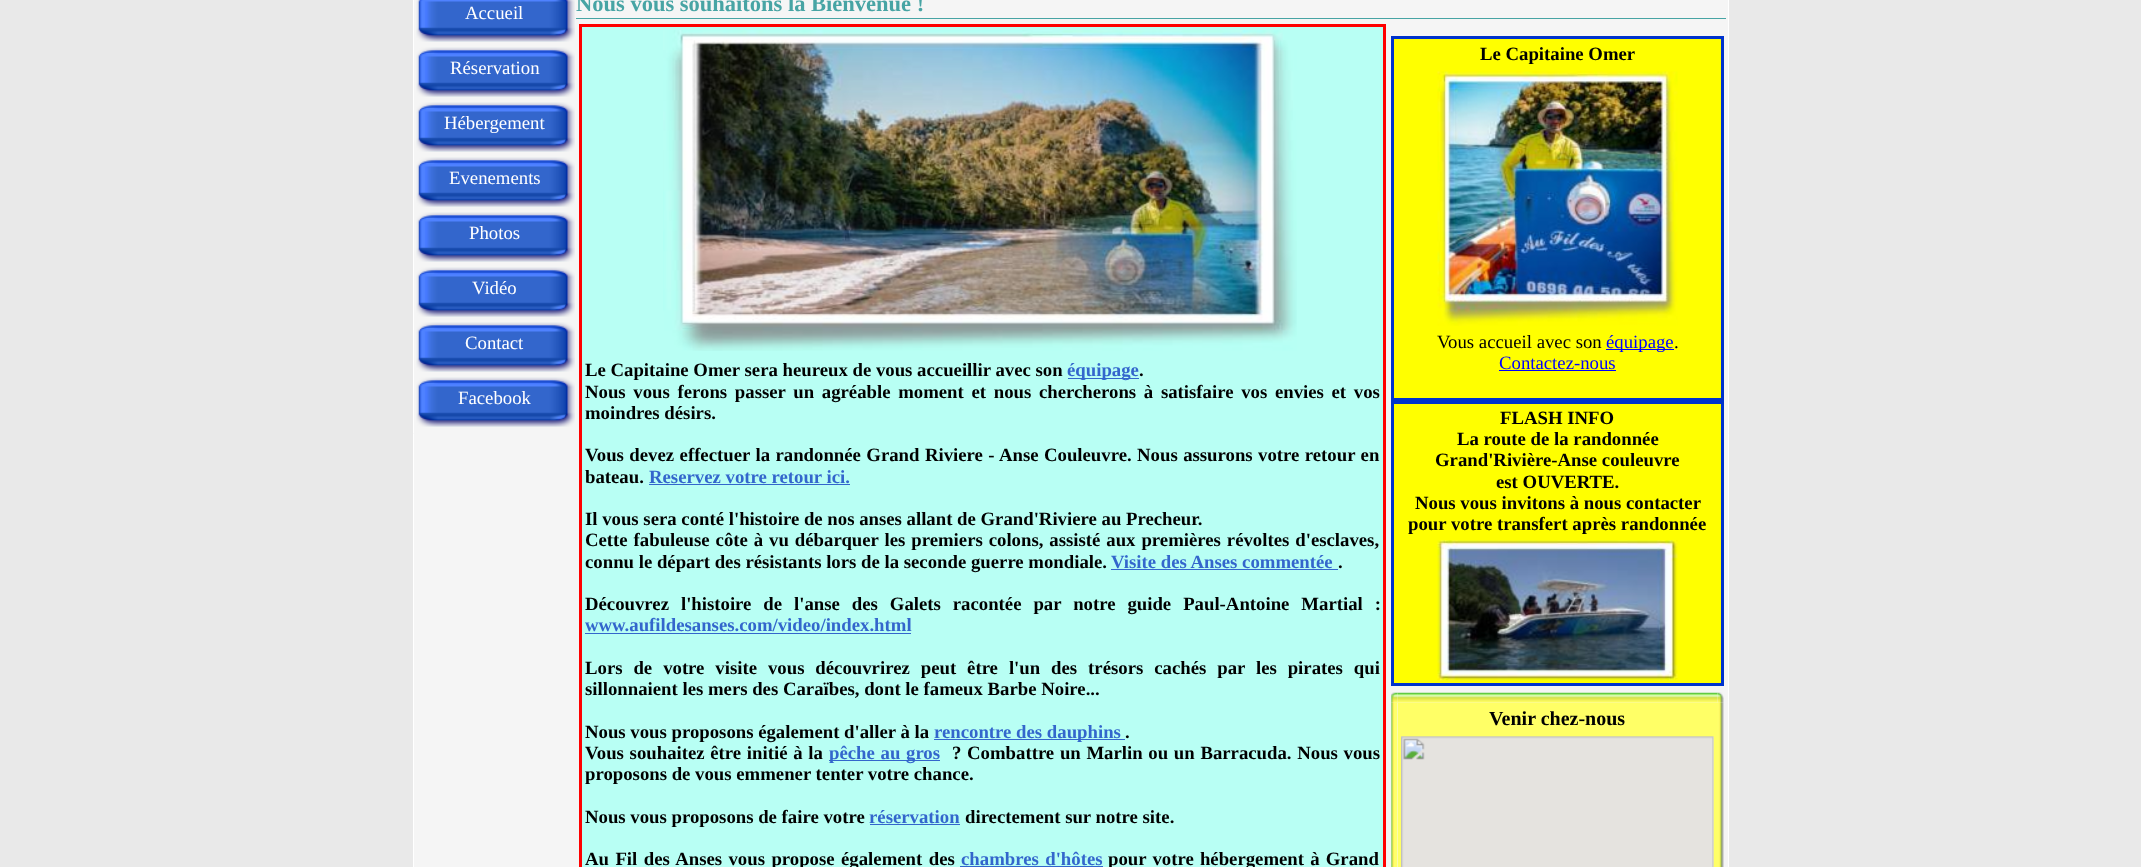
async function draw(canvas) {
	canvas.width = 2141;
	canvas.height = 867;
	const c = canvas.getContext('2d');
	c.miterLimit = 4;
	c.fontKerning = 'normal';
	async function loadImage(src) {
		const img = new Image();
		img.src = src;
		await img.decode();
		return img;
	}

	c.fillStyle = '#e9e9e9';
	c.fillRect(0, 0, 2141, 867);
	c.fillStyle = '#f5f5f5';
	c.beginPath();
	c.rect(413.5, -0.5, 1315, 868);
	c.fill();
	c.strokeStyle = '#fff';
	c.stroke();
	c.drawImage(await loadImage('img1.png'), 416, 0, 159, 42);
	c.drawImage(await loadImage('img2.png'), 417, 0, 158, 42);
	c.font = '18.75px Liberation Serif';
	c.fillStyle = '#fff';
	c.fillText('Accueil', 465, 19);
	c.drawImage(await loadImage('img3.png'), 416, 47, 159, 50);
	c.drawImage(await loadImage('img4.png'), 417, 48, 158, 49);
	c.fillText('Réservation', 450, 74);
	c.drawImage(await loadImage('img3.png'), 416, 102, 159, 50);
	c.drawImage(await loadImage('img4.png'), 417, 103, 158, 49);
	c.fillText('Hébergement', 444, 129);
	c.drawImage(await loadImage('img3.png'), 416, 157, 159, 50);
	c.drawImage(await loadImage('img4.png'), 417, 158, 158, 49);
	c.fillText('Evenements', 449, 184);
	c.drawImage(await loadImage('img3.png'), 416, 212, 159, 50);
	c.drawImage(await loadImage('img4.png'), 417, 213, 158, 49);
	c.fillText('Photos', 469, 239);
	c.drawImage(await loadImage('img3.png'), 416, 267, 159, 50);
	c.drawImage(await loadImage('img4.png'), 417, 268, 158, 49);
	c.fillText('Vidéo', 472, 294);
	c.drawImage(await loadImage('img5.png'), 416, 322, 159, 50);
	c.drawImage(await loadImage('img6.png'), 417, 323, 158, 49);
	c.fillText('Contact', 465, 349);
	c.drawImage(await loadImage('img3.png'), 416, 377, 159, 50);
	c.drawImage(await loadImage('img4.png'), 417, 378, 158, 49);
	c.fillText('Facebook', 458, 404);
	c.fillStyle = '#47a4a4';
	c.fillRect(576, 18, 1150, 1);
	c.font = 'bold 22.5px Liberation Serif';
	c.fillText('Nous vous souhaitons la Bienvenue !', 576, 11);
	c.fillStyle = '#b8fff4';
	c.beginPath();
	c.rect(580.5, 25.5, 804, 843);
	c.fill();
	c.strokeStyle = '#f00';
	c.lineWidth = 3;
	c.stroke();
	c.drawImage(await loadImage('img7.png'), 663, 30, 634, 321);
	c.font = 'bold 18.75px Liberation Serif';
	c.fillStyle = '#000';
	c.fillText('Le Capitaine Omer sera heureux de vous accueillir avec son', 585, 376);
	c.fillStyle = '#36c';
	c.fillRect(1068, 378, 71, 1);
	c.fillText('équipage', 1067, 376);
	c.fillStyle = '#000';
	c.fillText('.', 1139, 376);
	c.wordSpacing = '3px';
	c.fillText('Nous vous ferons passer un agréable moment et nous chercherons à satisfaire vos envies et vos', 585, 398);
	c.wordSpacing = '0px';
	c.fillText('moindres désirs.', 585, 419);
	c.wordSpacing = '0.75px';
	c.fillText('Vous devez effectuer la randonnée Grand Riviere - Anse Couleuvre. Nous assurons votre retour en', 585, 461);
	c.wordSpacing = '0px';
	c.fillText('bateau.', 585, 483);
	c.fillStyle = '#36c';
	c.fillText('Reservez votre retour ici.', 649, 483);
	c.fillRect(649, 484, 201, 1);
	c.fillStyle = '#000';
	c.fillText('Il vous sera conté l\'histoire de nos anses allant de Grand\'Riviere au Precheur.', 585, 525);
	c.wordSpacing = '1.25px';
	c.fillText('Cette fabuleuse côte à vu débarquer les premiers colons, assisté aux premières révoltes d\'esclaves,', 585, 546);
	c.wordSpacing = '0px';
	c.fillText('connu le départ des résistants lors de la seconde guerre mondiale.', 585, 568);
	c.fillStyle = '#36c';
	c.fillText('Visite des Anses commentée', 1111, 568);
	c.fillStyle = '#000';
	c.fillText('.', 1338, 568);
	c.fillStyle = '#36c';
	c.fillRect(1111, 569, 227, 1);
	c.wordSpacing = '7.25px';
	c.fillStyle = '#000';
	c.fillText('Découvrez l\'histoire de l\'anse des Galets racontée par notre guide Paul-Antoine Martial :', 585, 610);
	c.wordSpacing = '0px';
	c.fillStyle = '#36c';
	c.fillText('www.aufildesanses.com/video/index.html', 585, 631);
	c.fillRect(585, 633, 326, 1);
	c.wordSpacing = '6.25px';
	c.fillStyle = '#000';
	c.fillText('Lors de votre visite vous découvrirez peut être l\'un des trésors cachés par les pirates qui', 585, 674);
	c.wordSpacing = '0px';
	c.fillText('sillonnaient les mers des Caraïbes, dont le fameux Barbe Noire...', 585, 695);
	c.fillText('Nous vous proposons également d\'aller à la', 585, 738);
	c.fillStyle = '#36c';
	c.fillRect(934, 739, 191, 1);
	c.fillText('rencontre des dauphins', 934, 738);
	c.fillStyle = '#000';
	c.fillText('.', 1125, 738);
	c.wordSpacing = '1px';
	c.fillText('Vous souhaitez être initié à la', 585, 759);
	c.fillStyle = '#36c';
	c.fillRect(829, 760, 111, 1);
	c.fillText('pêche au gros', 829, 759);
	c.fillStyle = '#000';
	c.fillText('? Combattre un Marlin ou un Barracuda. Nous vous', 952, 759);
	c.wordSpacing = '0px';
	c.fillText('proposons de vous emmener tenter votre chance.', 585, 780);
	c.fillText('Nous vous proposons de faire votre', 585, 823);
	c.fillStyle = '#36c';
	c.fillText('réservation', 869, 823);
	c.fillRect(870, 824, 90, 1);
	c.fillStyle = '#000';
	c.fillText('directement sur notre site.', 965, 823);
	c.wordSpacing = '1.75px';
	c.fillText('Au Fil des Anses vous propose également des', 585, 865);
	c.fillStyle = '#36c';
	c.fillText('chambres d\'hôtes', 961, 865);
	c.fillRect(960, 866, 143, 1);
	c.wordSpacing = '1.5px';
	c.fillStyle = '#000';
	c.fillText('pour votre hébergement à Grand', 1108, 865);
	c.fillStyle = '#ff0';
	c.beginPath();
	c.rect(1392.5, 37.5, 330, 362);
	c.fill();
	c.strokeStyle = '#03c';
	c.stroke();
	c.wordSpacing = '0px';
	c.fillStyle = '#000';
	c.fillText('Le Capitaine Omer', 1480, 60);
	c.drawImage(await loadImage('img8.png'), 1437, 71, 241, 255);
	c.font = '18.75px Liberation Serif';
	c.fillText('Vous accueil avec son', 1437, 348);
	c.fillStyle = '#00f';
	c.fillRect(1606, 349, 68, 1);
	c.fillText('équipage', 1606, 348);
	c.fillStyle = '#000';
	c.fillText('.', 1674, 348);
	c.fillStyle = '#00f';
	c.fillText('Contactez-nous', 1499, 369);
	c.fillRect(1499, 370, 117, 1);
	c.fillStyle = '#ff0';
	c.beginPath();
	c.rect(1392.5, 402.5, 330, 282);
	c.fill();
	c.stroke();
	c.font = 'bold 18.75px Liberation Serif';
	c.fillStyle = '#000';
	for (const [text, x, y] of [
		['FLASH INFO', 1500, 424],
		['La route de la randonnée', 1457, 445],
		['Grand\'Rivière-Anse couleuvre', 1435, 466],
		['est OUVERTE.', 1496, 488],
		['Nous vous invitons à nous contacter', 1415, 509],
		['pour votre transfert après randonnée', 1408, 530],
	]) {
		c.fillText(text, x, y);
	}
	c.drawImage(await loadImage('img9.png'), 1437, 540, 241, 141);
	c.drawImage(await loadImage('img11.png'), 1397, 692, 321, 11);
	c.drawImage(await loadImage('img13.png'), 1391, 702, 7, 165);
	c.drawImage(await loadImage('img10.png'), 1391, 692, 7, 11);
	c.fillStyle = '#ff6';
	c.fillRect(1398, 703, 320, 164);
	c.drawImage(await loadImage('img15.png'), 1717, 702, 7, 165);
	c.drawImage(await loadImage('img12.png'), 1717, 692, 7, 11);
	c.font = 'bold 20px Liberation Serif';
	c.fillStyle = '#000';
	c.fillText('Venir chez-nous', 1489, 725);
	c.drawImage(await loadImage('img14.png'), 1401, 736, 313, 131);
}

draw(document.querySelector('canvas'));
